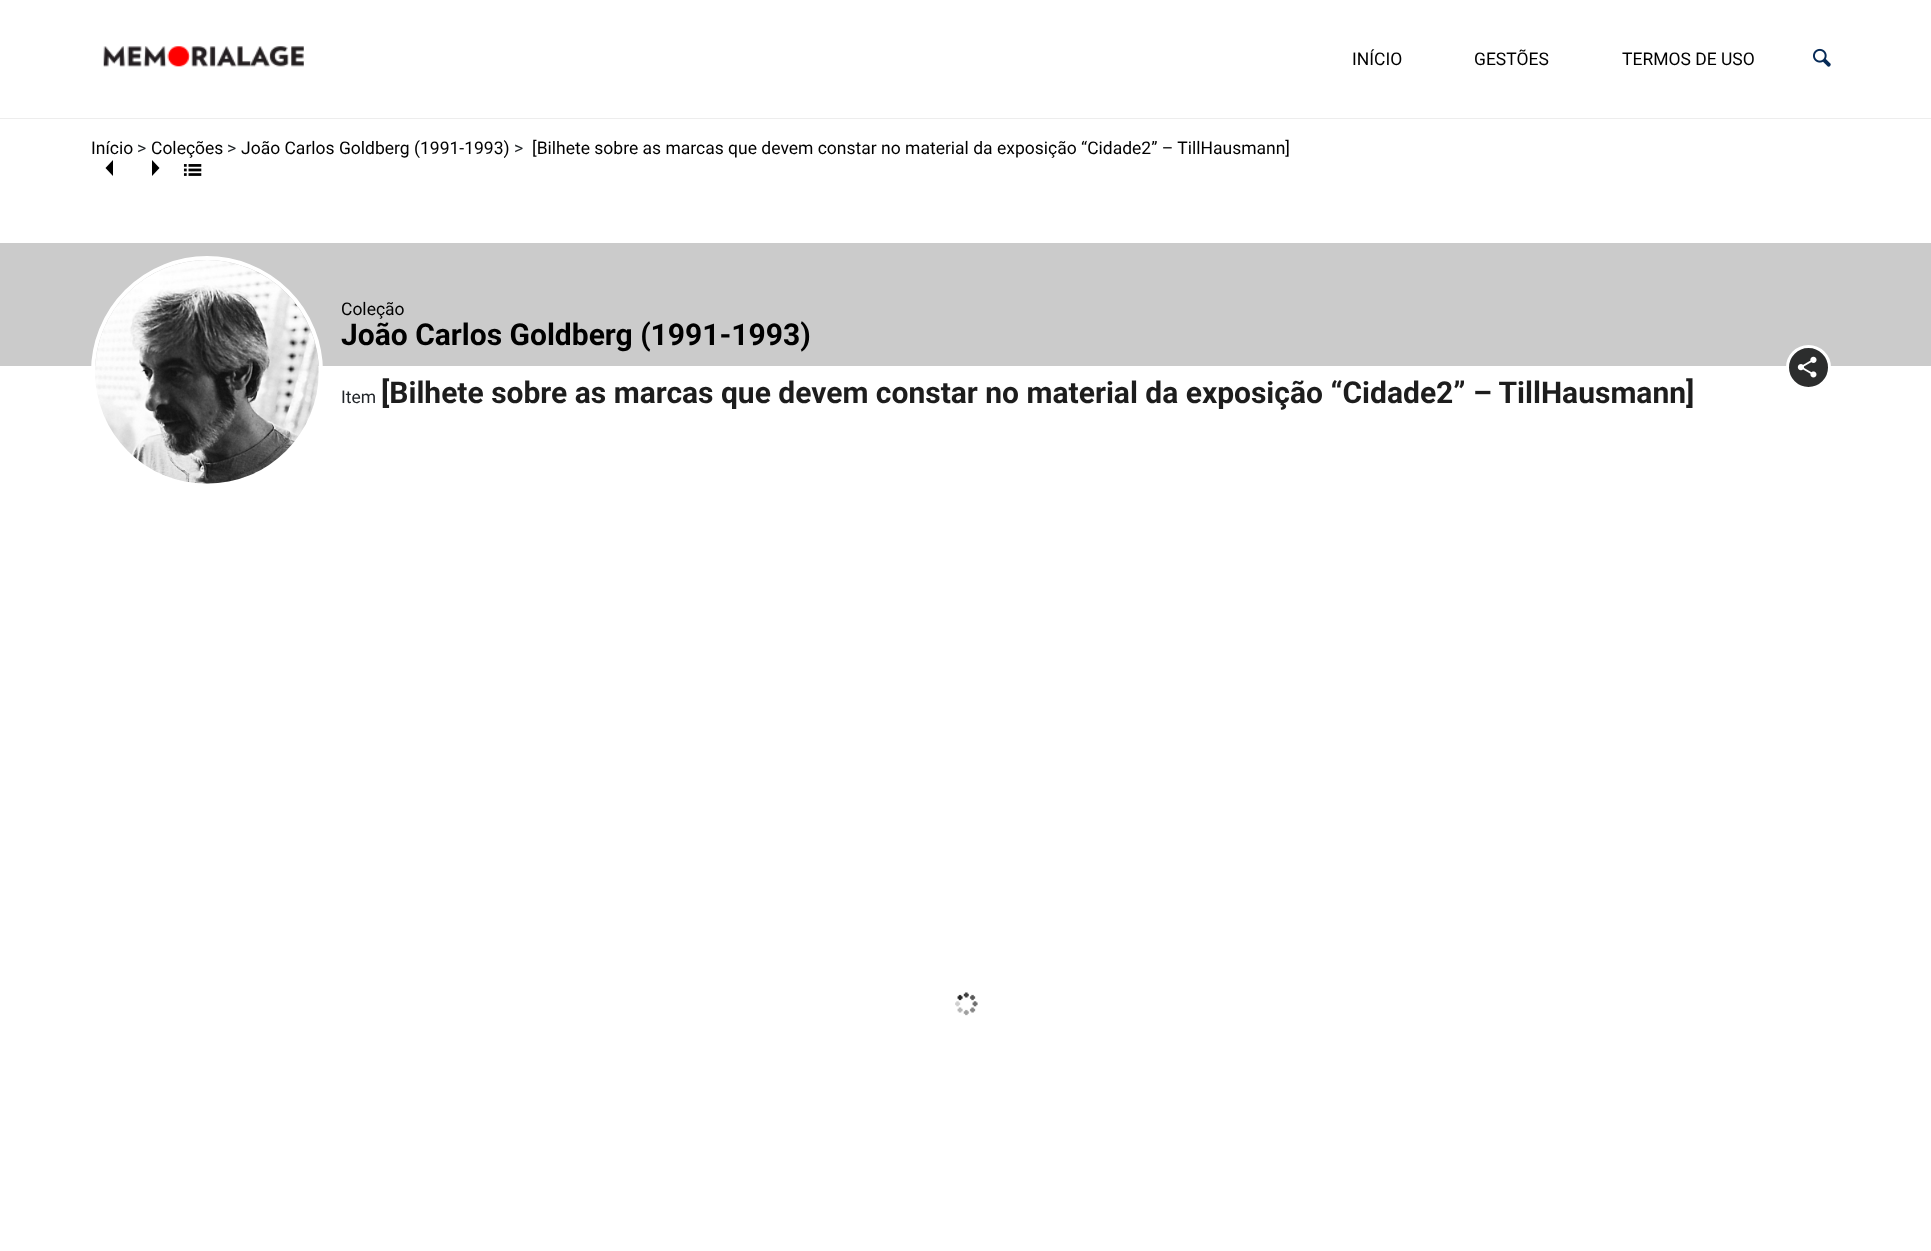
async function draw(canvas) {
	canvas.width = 1931;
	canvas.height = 1251;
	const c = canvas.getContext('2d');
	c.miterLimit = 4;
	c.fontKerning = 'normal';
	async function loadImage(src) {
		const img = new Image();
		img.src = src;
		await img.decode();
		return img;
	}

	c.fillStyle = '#fff';
	c.fillRect(0, 0, 1931, 1251);
	c.fillStyle = '#ededed';
	c.fillRect(0, 118, 1931, 1);
	c.drawImage(await loadImage('img1.png'), 103, 46, 201, 21);
	c.font = '17.5px Roboto';
	c.fillStyle = '#000';
	for (const [text, x, y] of [
		['INÍCIO', 1352, 65],
		['GESTÕES', 1474, 65],
		['TERMOS DE USO', 1622, 65],
	]) {
		c.fillText(text, x, y);
	}
	c.drawImage(await loadImage('img2.png'), 1813, 48, 18, 19);
	c.fillText('Início', 91, 154);
	c.fillStyle = '#212529';
	c.fillText('>', 137, 154);
	c.fillStyle = '#000';
	c.fillText('Coleções', 151, 154);
	c.fillStyle = '#212529';
	c.fillText('>', 227, 154);
	c.fillStyle = '#000';
	c.fillText('João Carlos Goldberg (1991-1993)', 241, 154);
	c.fillStyle = '#212529';
	c.fillText('>', 514, 154);
	c.fillStyle = '#000';
	c.fillText('[Bilhete sobre as marcas que devem constar no material da exposição “Cidade2” – TillHausmann]', 532, 154);
	c.beginPath();
	c.moveTo(113, 160);
	c.lineTo(105.5, 168);
	c.lineTo(113, 176);
	c.closePath();
	c.moveTo(152, 176);
	c.lineTo(159.5, 168);
	c.lineTo(152, 160);
	c.closePath();
	c.fill();
	c.drawImage(await loadImage('img3.png'), 183, 164, 19, 12);
	c.fillStyle = '#cbcbcb';
	c.fillRect(0, 243, 1931, 123);
	c.beginPath();
	c.arc(207, 372, 114, 0, 2 * Math.PI);
	c.strokeStyle = '#fff';
	c.lineWidth = 4;
	c.stroke();
	c.drawImage(await loadImage('img4.png'), 95, 260, 224, 224);
	c.fillStyle = '#000';
	c.fillText('Coleção', 341, 315);
	c.font = 'bold 30px Roboto';
	c.fillText('João Carlos Goldberg (1991-1993)', 341, 345);
	c.fillStyle = '#2c2d2d';
	c.beginPath();
	c.arc(1808.5, 367.5, 21, 0, 2 * Math.PI);
	c.fill();
	c.lineWidth = 3;
	c.stroke();
	c.drawImage(await loadImage('img5.png'), 1797, 356, 20, 22);
	c.font = '17.5px Roboto';
	c.fillStyle = '#212529';
	c.fillText('Item', 341, 403);
	c.font = 'bold 30px Roboto';
	c.fillStyle = '#1d1d1d';
	c.fillText('[Bilhete sobre as marcas que devem constar no material da exposição “Cidade2” – TillHausmann]', 381, 403);
	c.drawImage(await loadImage('img6.png'), 955, 992, 23, 24);
}

draw(document.querySelector('canvas'));
